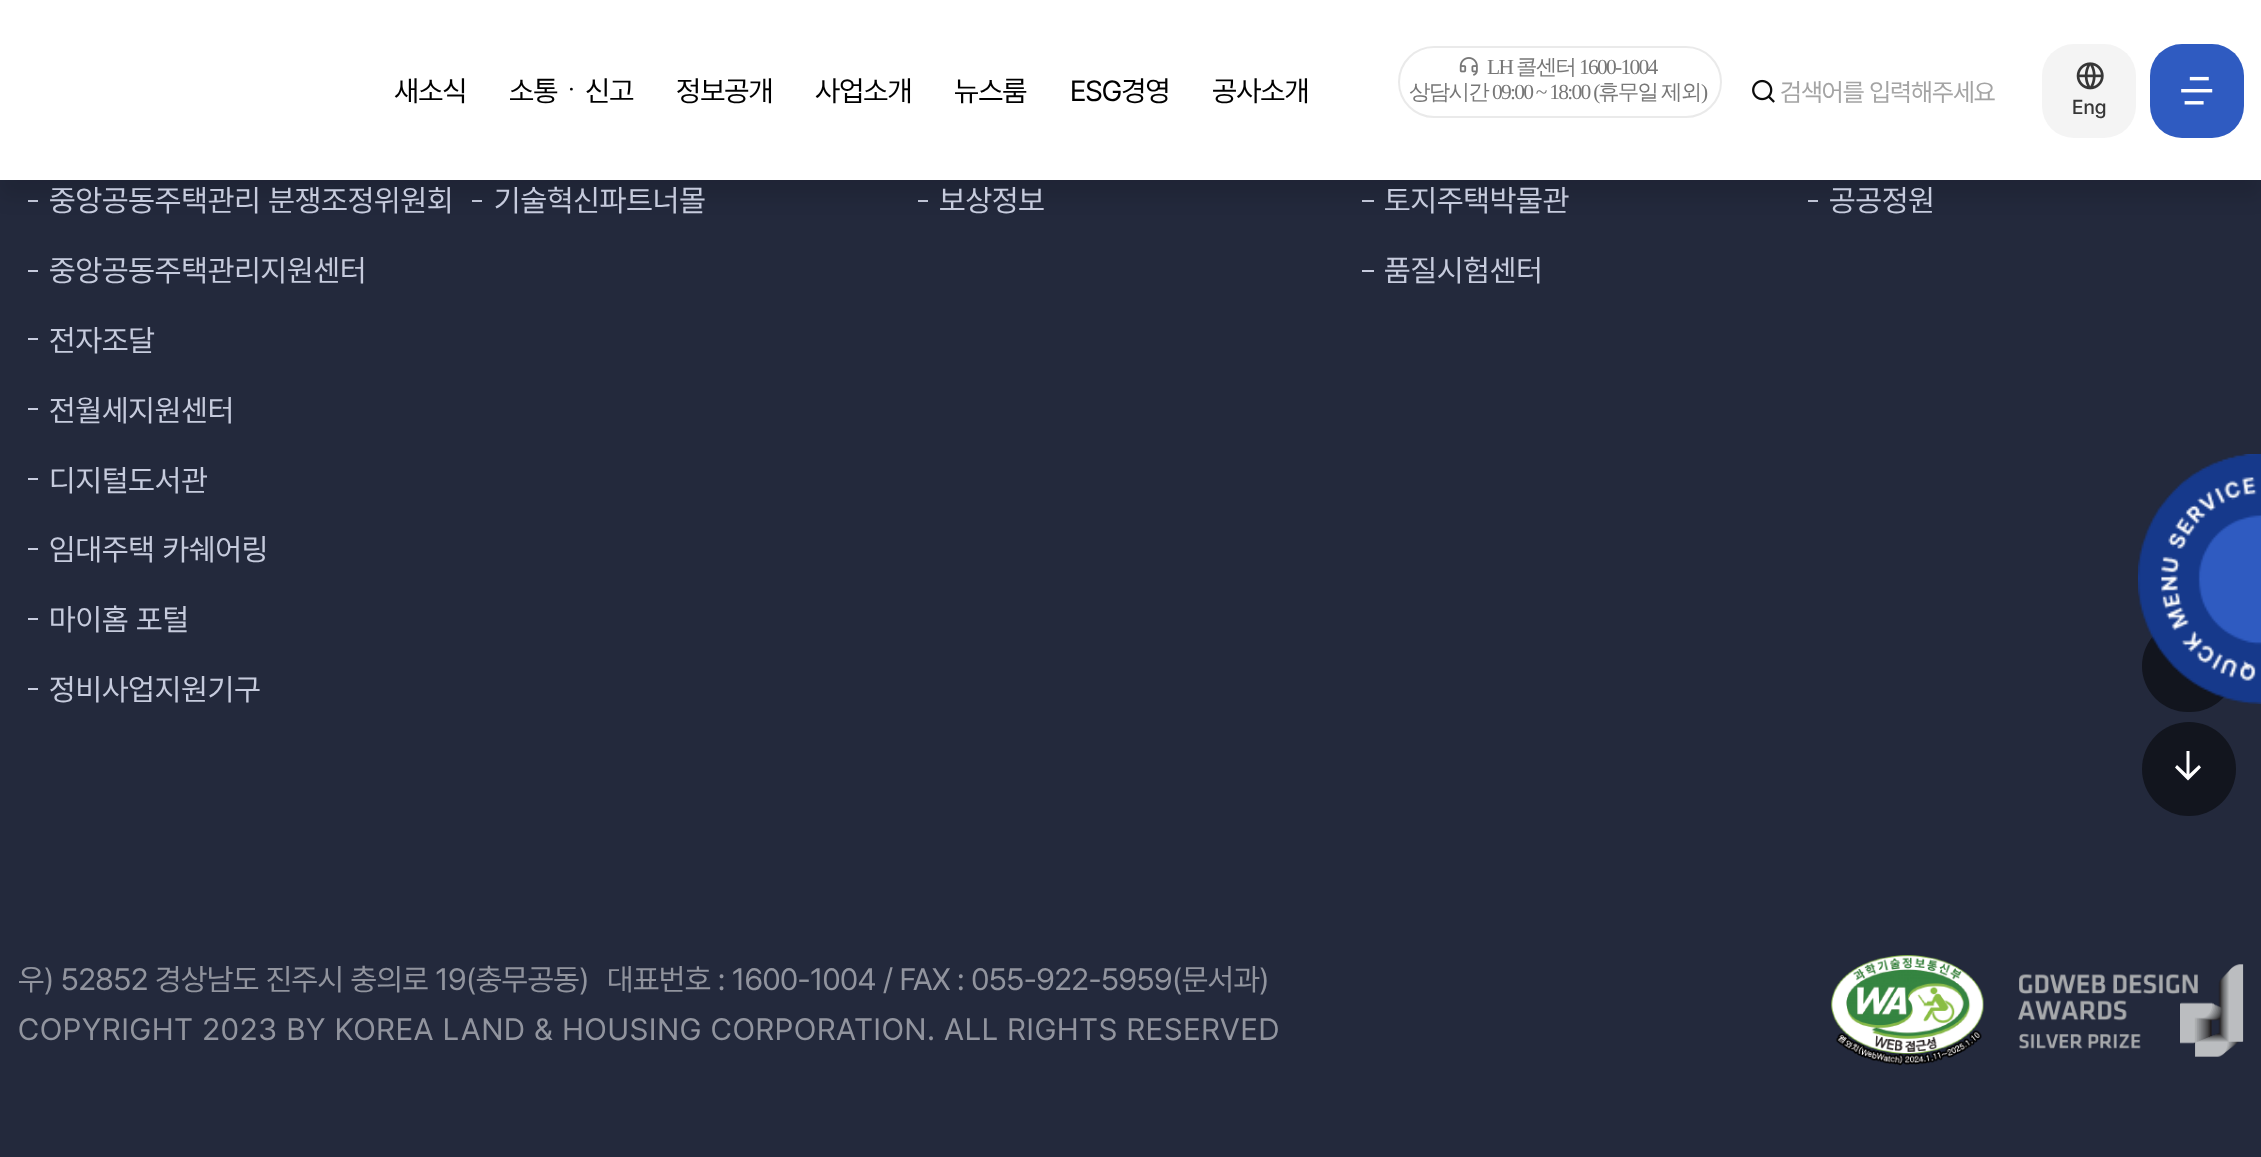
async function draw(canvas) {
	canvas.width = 2261;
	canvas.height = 1157;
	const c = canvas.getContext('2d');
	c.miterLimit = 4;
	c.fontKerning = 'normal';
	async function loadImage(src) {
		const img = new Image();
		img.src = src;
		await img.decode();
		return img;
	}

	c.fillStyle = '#23293c';
	c.fillRect(0, 0, 2261, 1157);
	for (const [x, y, w, h, color] of [
		[28, 200, 10, 2, '#c6cbdd'],
		[472, 200, 10, 2, '#c6cbdd'],
		[918, 200, 10, 2, '#c6cbdd'],
		[1362, 200, 12, 2, '#c6cbdd'],
		[1808, 200, 10, 2, '#c6cbdd'],
	]) {
		c.fillStyle = color;
		c.fillRect(x, y, w, h);
	}
	c.fillStyle = '#0000001a';
	c.filter = 'blur(9px)';
	c.beginPath();
	c.rect(0, 18, 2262, 180);
	c.fill();
	c.filter = 'none';
	c.fillStyle = '#fff';
	c.fillRect(0, 0, 2261, 180);
	c.letterSpacing = '-0.9px';
	c.font = '29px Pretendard';
	c.fillStyle = '#000';
	c.fillText('새소식', 394, 101);
	c.fillText('소통', 509, 101);
	c.font = '500 29px WenQuanYi Zen Hei';
	c.fillText('ㆍ', 557, 101);
	c.font = '29px Pretendard';
	for (const [text, x, y] of [
		['신고', 585, 101],
		['정보공개', 676, 101],
		['사업소개', 815, 101],
		['뉴스룸', 954, 101],
		['ESG경영', 1070, 101],
		['공사소개', 1212, 101],
	]) {
		c.fillText(text, x, y);
	}
	c.beginPath();
	c.roundRect(1399, 47, 322, 70, 35);
	c.strokeStyle = '#eaeaea';
	c.lineWidth = 2;
	c.stroke();
	c.drawImage(await loadImage('img1.png'), 1459, 57, 19, 19);
	c.letterSpacing = '-1.75px';
	c.font = '21.5px Liberation Serif';
	c.fillStyle = '#777';
	c.fillText('LH', 1487, 74);
	c.font = '500 21.5px WenQuanYi Zen Hei';
	c.fillText('콜센터', 1516, 74);
	c.font = '21.5px Liberation Serif';
	c.fillText('1600-1004', 1579, 74);
	c.font = '500 21.5px WenQuanYi Zen Hei';
	c.fillText('상담시간', 1409, 99);
	c.font = '21.5px Liberation Serif';
	c.fillText('09:00 ~ 18:00 (', 1492, 99);
	c.font = '500 21.5px WenQuanYi Zen Hei';
	c.fillText('휴무일', 1598, 99);
	c.fillText('제외', 1661, 99);
	c.font = '21.5px Liberation Serif';
	c.fillText(')', 1701, 99);
	c.drawImage(await loadImage('img2.png'), 1752, 79, 23, 24);
	c.letterSpacing = '-0.9px';
	c.font = '25.25px Pretendard';
	c.fillStyle = '#a4a4a4';
	c.fillText('검색어를 입력해주세요', 1780, 101);
	c.fillStyle = '#2f5bc1';
	c.beginPath();
	c.roundRect(2150, 44, 94, 94, 32);
	c.fill();
	c.drawImage(await loadImage('img3.png'), 2181, 76, 32, 29);
	c.fillStyle = '#f4f4f4';
	c.beginPath();
	c.roundRect(2042, 44, 94, 94, 32);
	c.fill();
	c.drawImage(await loadImage('img4.png'), 2076, 62, 28, 28);
	c.letterSpacing = '0px';
	c.font = '500 20px Pretendard';
	c.fillStyle = '#363636';
	c.fillText('Eng', 2072, 114);
	c.font = '30.6px Pretendard';
	c.fillStyle = '#c6cbdd';
	c.fillText('중앙공동주택관리 분쟁조정위원회', 49, 211);
	c.fillRect(28, 270, 10, 2);
	c.fillText('중앙공동주택관리지원센터', 49, 281);
	c.fillRect(28, 338, 10, 2);
	c.fillText('전자조달', 49, 351);
	c.fillRect(28, 408, 10, 2);
	c.fillText('전월세지원센터', 49, 421);
	c.fillRect(28, 478, 10, 2);
	c.fillText('디지털도서관', 49, 491);
	c.fillRect(28, 548, 10, 2);
	c.fillText('임대주택 카쉐어링', 49, 560);
	c.fillRect(28, 618, 10, 2);
	c.fillText('마이홈 포털', 49, 630);
	c.fillRect(28, 688, 10, 2);
	for (const [text, x, y] of [
		['정비사업지원기구', 49, 700],
		['기술혁신파트너몰', 494, 211],
		['보상정보', 939, 211],
		['토지주택박물관', 1384, 211],
	]) {
		c.fillText(text, x, y);
	}
	c.fillRect(1362, 270, 12, 2);
	c.fillText('품질시험센터', 1384, 281);
	c.fillText('공공정원', 1829, 211);
	c.fillStyle = '#12151e';
	c.beginPath();
	c.roundRect(2142, 620, 94, 92, 46);
	c.fill();
	c.beginPath();
	c.arc(2189, 769, 47, 0, 2 * Math.PI);
	c.fill();
	c.fillStyle = '#fff';
	c.beginPath();
	c.moveTo(2189.5, 751);
	c.lineTo(2189.5, 774);
	c.lineTo(2199, 765);
	c.lineTo(2201, 767.5);
	c.lineTo(2188, 780.5);
	c.lineTo(2175, 767.5);
	c.lineTo(2177, 765);
	c.lineTo(2186.5, 774);
	c.lineTo(2186.5, 751);
	c.closePath();
	c.fill();
	c.letterSpacing = '-0.55px';
	c.fillStyle = '#91949e';
	c.fillText('우) 52852 경상남도 진주시 충의로 19(충무공동)', 18, 990);
	c.fillText('대표번호 : 1600-1004 / FAX : 055-922-5959(문서과)', 607, 990);
	c.drawImage(await loadImage('img5.png'), 1831, 955, 413, 111);
	c.letterSpacing = '0.9px';
	c.fillText('COPYRIGHT 2023 BY KOREA LAND & HOUSING CORPORATION. ALL RIGHTS RESERVED', 18, 1040);
	c.drawImage(await loadImage('img6.png'), 2138, 454, 123, 250);
}

draw(document.querySelector('canvas'));
